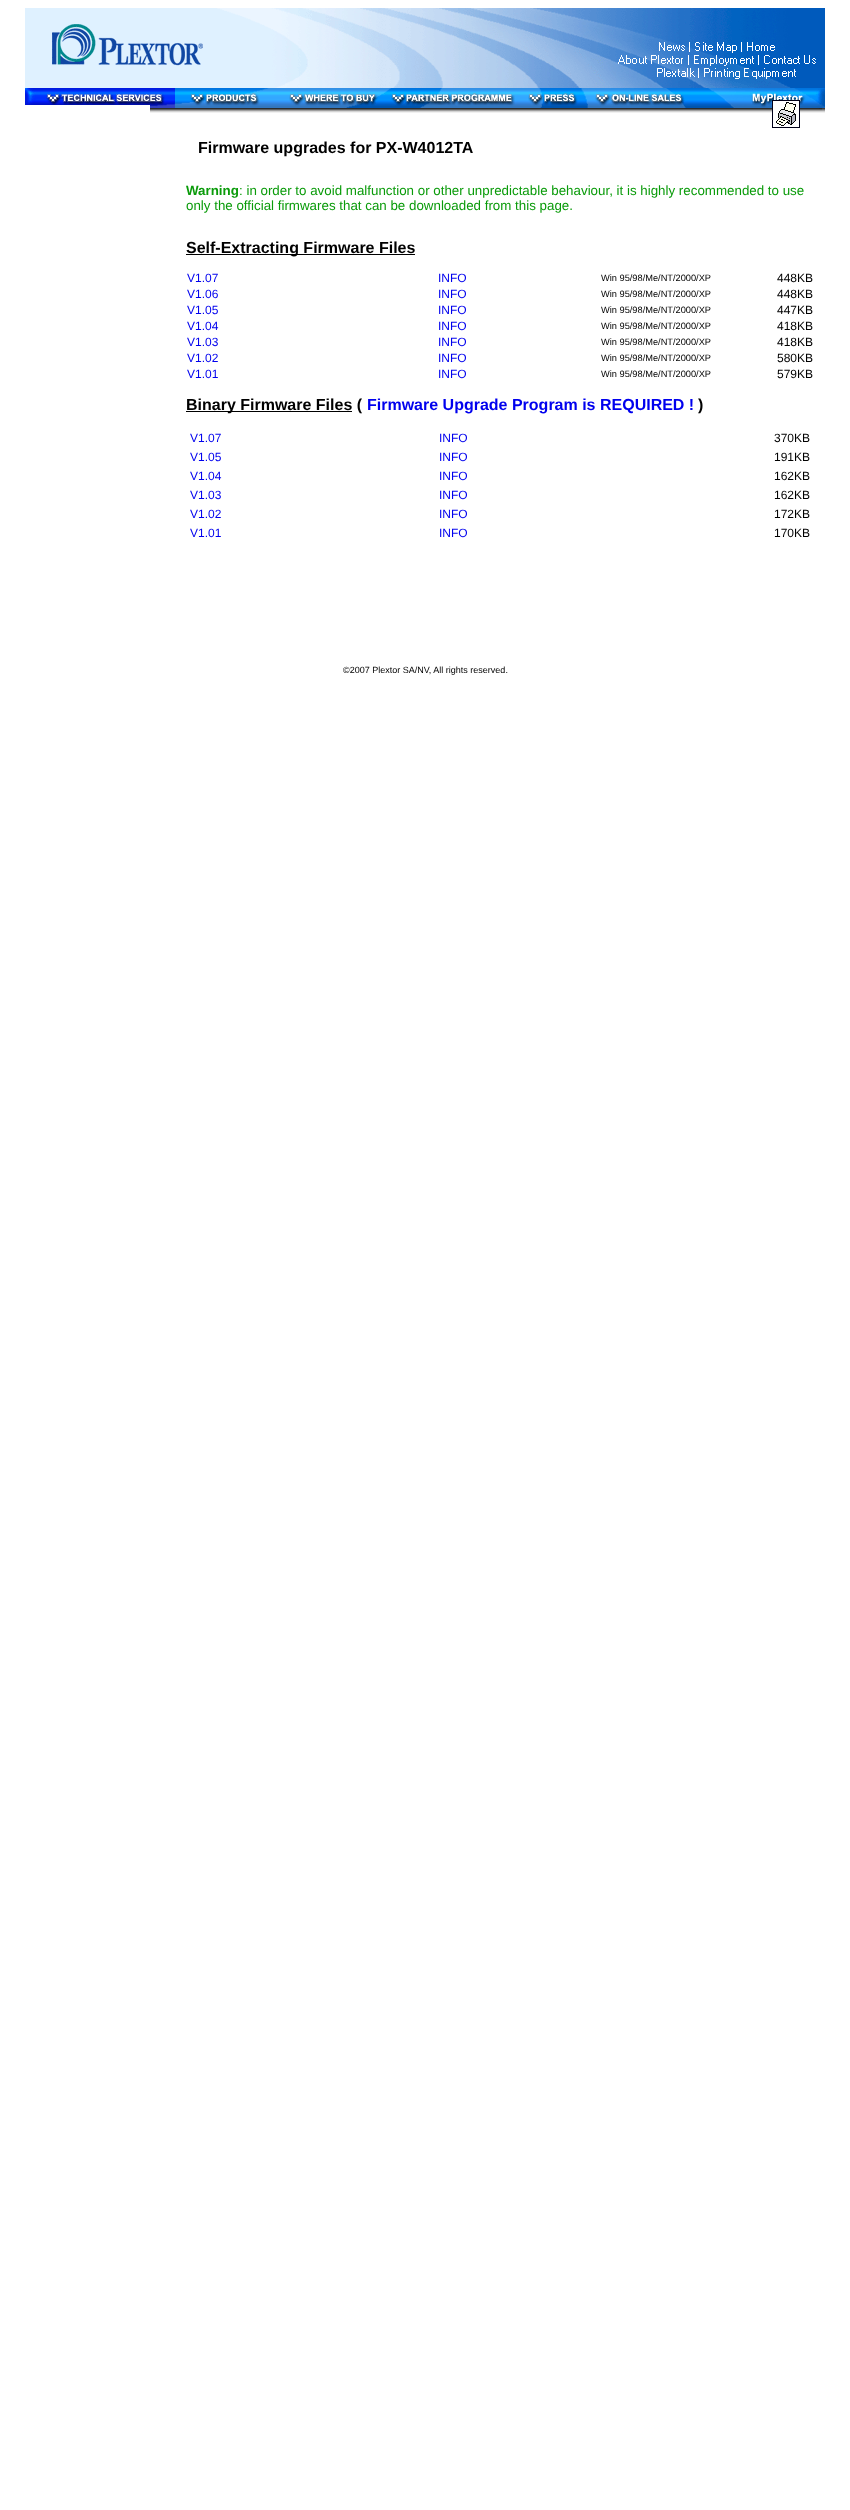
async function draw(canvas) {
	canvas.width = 850;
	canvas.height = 2510;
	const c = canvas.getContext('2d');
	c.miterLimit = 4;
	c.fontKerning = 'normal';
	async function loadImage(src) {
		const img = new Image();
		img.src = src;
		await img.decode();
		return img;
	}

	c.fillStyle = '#fff';
	c.fillRect(0, 0, 850, 2510);
	c.drawImage(await loadImage('img3.png'), 25, 88, 150, 25);
	c.fillRect(25, 105, 125, 8);
	c.drawImage(await loadImage('img10.png'), 735, 88, 90, 25);
	c.drawImage(await loadImage('img1.png'), 772, 100, 28, 28);
	c.drawImage(await loadImage('img2.png'), 25, 8, 800, 80);
	c.drawImage(await loadImage('img4.png'), 175, 88, 105, 25);
	c.drawImage(await loadImage('img5.png'), 280, 88, 105, 25);
	c.drawImage(await loadImage('img6.png'), 385, 88, 135, 25);
	c.drawImage(await loadImage('img7.png'), 520, 88, 65, 25);
	c.drawImage(await loadImage('img8.png'), 585, 88, 105, 25);
	c.drawImage(await loadImage('img9.png'), 690, 88, 45, 25);
	c.font = 'bold 16px Liberation Sans';
	c.fillStyle = '#000';
	c.fillText('Firmware upgrades for PX-W4012TA', 198, 153);
	c.font = 'bold 13.35px Liberation Sans';
	c.fillStyle = '#0a9b0a';
	c.fillText('Warning', 186, 195);
	c.font = '13.35px Liberation Sans';
	c.fillText(': in order to avoid malfunction or other unpredictable behaviour, it is highly recommended to use', 239, 195);
	c.fillText('only the official firmwares that can be downloaded from this page.', 186, 210);
	c.fillStyle = '#000';
	c.fillRect(186, 254, 229, 1);
	c.font = 'bold 16px Liberation Sans';
	c.fillText('Self-Extracting Firmware Files', 186, 253);
	c.font = '12px Liberation Sans';
	c.fillStyle = '#00e';
	c.fillText('V1.07', 187, 282);
	c.fillText('INFO', 438, 282);
	c.font = '9.25px Liberation Sans';
	c.fillStyle = '#000';
	c.fillText('Win 95/98/Me/NT/2000/XP', 601, 281);
	c.font = '12px Liberation Sans';
	c.fillText('448KB', 777, 282);
	c.fillStyle = '#00e';
	c.fillText('V1.06', 187, 298);
	c.fillText('INFO', 438, 298);
	c.font = '9.25px Liberation Sans';
	c.fillStyle = '#000';
	c.fillText('Win 95/98/Me/NT/2000/XP', 601, 297);
	c.font = '12px Liberation Sans';
	c.fillText('448KB', 777, 298);
	c.fillStyle = '#00e';
	c.fillText('V1.05', 187, 314);
	c.fillText('INFO', 438, 314);
	c.font = '9.25px Liberation Sans';
	c.fillStyle = '#000';
	c.fillText('Win 95/98/Me/NT/2000/XP', 601, 313);
	c.font = '12px Liberation Sans';
	c.fillText('447KB', 777, 314);
	c.fillStyle = '#00e';
	c.fillText('V1.04', 187, 330);
	c.fillText('INFO', 438, 330);
	c.font = '9.25px Liberation Sans';
	c.fillStyle = '#000';
	c.fillText('Win 95/98/Me/NT/2000/XP', 601, 329);
	c.font = '12px Liberation Sans';
	c.fillText('418KB', 777, 330);
	c.fillStyle = '#00e';
	c.fillText('V1.03', 187, 346);
	c.fillText('INFO', 438, 346);
	c.font = '9.25px Liberation Sans';
	c.fillStyle = '#000';
	c.fillText('Win 95/98/Me/NT/2000/XP', 601, 345);
	c.font = '12px Liberation Sans';
	c.fillText('418KB', 777, 346);
	c.fillStyle = '#00e';
	c.fillText('V1.02', 187, 362);
	c.fillText('INFO', 438, 362);
	c.font = '9.25px Liberation Sans';
	c.fillStyle = '#000';
	c.fillText('Win 95/98/Me/NT/2000/XP', 601, 361);
	c.font = '12px Liberation Sans';
	c.fillText('580KB', 777, 362);
	c.fillStyle = '#00e';
	c.fillText('V1.01', 187, 378);
	c.fillText('INFO', 438, 378);
	c.font = '9.25px Liberation Sans';
	c.fillStyle = '#000';
	c.fillText('Win 95/98/Me/NT/2000/XP', 601, 377);
	c.font = '12px Liberation Sans';
	c.fillText('579KB', 777, 378);
	c.fillRect(186, 411, 166, 1);
	c.font = 'bold 16px Liberation Sans';
	c.fillText('Binary Firmware Files (', 186, 410);
	c.fillStyle = '#00e';
	c.fillText('Firmware Upgrade Program is REQUIRED !', 367, 410);
	c.fillStyle = '#000';
	c.fillText(')', 698, 410);
	c.font = '12px Liberation Sans';
	c.fillStyle = '#00e';
	c.fillText('V1.07', 190, 442);
	c.fillText('INFO', 439, 442);
	c.fillStyle = '#000';
	c.fillText('370KB', 774, 442);
	c.fillStyle = '#00e';
	c.fillText('V1.05', 190, 461);
	c.fillText('INFO', 439, 461);
	c.fillStyle = '#000';
	c.fillText('191KB', 774, 461);
	c.fillStyle = '#00e';
	c.fillText('V1.04', 190, 480);
	c.fillText('INFO', 439, 480);
	c.fillStyle = '#000';
	c.fillText('162KB', 774, 480);
	c.fillStyle = '#00e';
	c.fillText('V1.03', 190, 499);
	c.fillText('INFO', 439, 499);
	c.fillStyle = '#000';
	c.fillText('162KB', 774, 499);
	c.fillStyle = '#00e';
	c.fillText('V1.02', 190, 518);
	c.fillText('INFO', 439, 518);
	c.fillStyle = '#000';
	c.fillText('172KB', 774, 518);
	c.fillStyle = '#00e';
	c.fillText('V1.01', 190, 537);
	c.fillText('INFO', 439, 537);
	c.fillStyle = '#000';
	c.fillText('170KB', 774, 537);
	c.font = '9px Liberation Sans';
	c.fillText('©2007 Plextor SA/NV, All rights reserved.', 343, 673);
}

draw(document.querySelector('canvas'));
